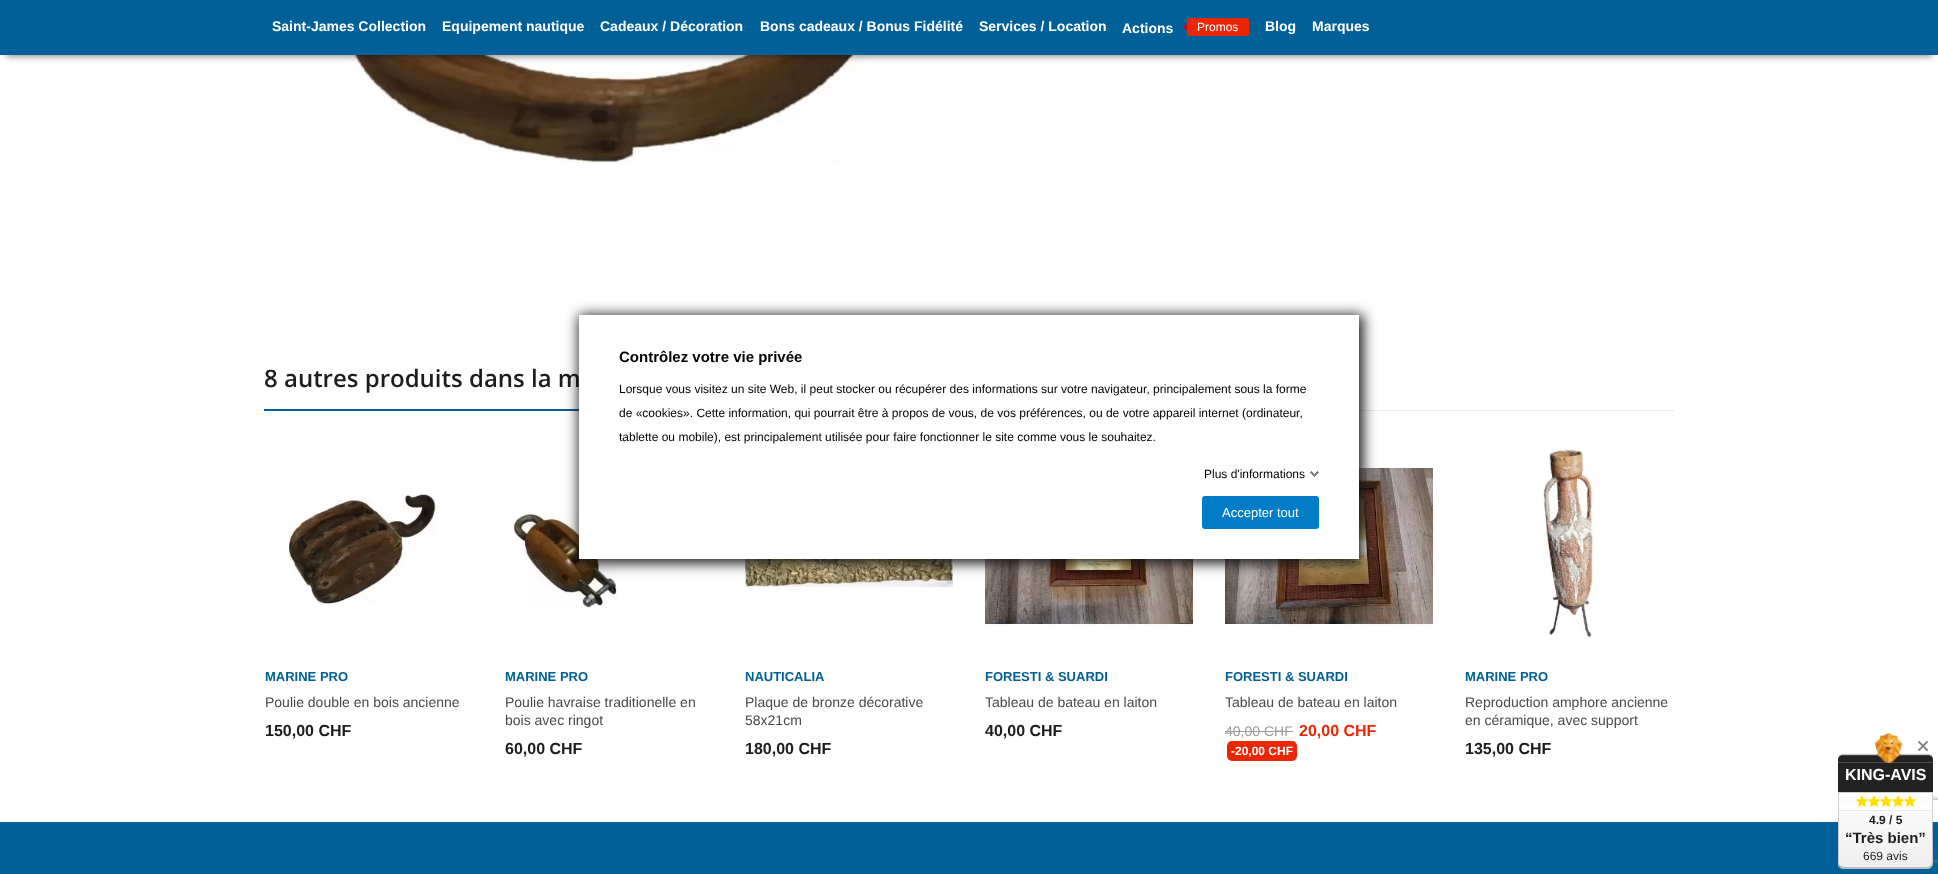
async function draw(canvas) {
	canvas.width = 1938;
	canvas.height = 874;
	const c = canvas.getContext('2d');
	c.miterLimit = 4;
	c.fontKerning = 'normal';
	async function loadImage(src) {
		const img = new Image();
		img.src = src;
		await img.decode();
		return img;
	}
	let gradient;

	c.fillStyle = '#fff';
	c.fillRect(0, 0, 1938, 874);
	c.drawImage(await loadImage('img1.png'), 331, 55, 554, 108);
	c.fillStyle = '#00000066';
	c.filter = 'blur(3px)';
	c.beginPath();
	c.rect(6, 14, 1926, 43);
	c.fill();
	c.filter = 'none';
	c.fillStyle = '#006097';
	c.fillRect(0, 0, 1938, 55);
	c.font = 'bold 14px Liberation Sans';
	c.fillStyle = '#fff';
	for (const [text, x, y] of [
		['Saint-James Collection', 272, 31],
		['Equipement nautique', 442, 31],
		['Cadeaux / Décoration', 600, 31],
		['Bons cadeaux / Bonus Fidélité', 760, 31],
		['Services / Location', 979, 31],
		['Actions', 1122, 33],
	]) {
		c.fillText(text, x, y);
	}
	c.fillStyle = '#eb2606';
	c.beginPath();
	c.roundRect(1187, 18, 62, 18, 3);
	c.fill();
	c.fillStyle = '#c40316';
	c.beginPath();
	c.moveTo(1187, 23);
	c.lineTo(1187, 31);
	c.lineTo(1183, 27);
	c.closePath();
	c.fill();
	c.font = '12px Liberation Sans';
	c.fillStyle = '#fff';
	c.fillText('Promos', 1197, 31);
	c.font = 'bold 14px Liberation Sans';
	c.fillText('Blog', 1265, 31);
	c.fillText('Marques', 1312, 31);
	c.fillStyle = '#ebebeb';
	c.fillRect(1359, 410, 315, 1);
	c.font = '600 24px Open Sans';
	c.fillStyle = '#1d1d1d';
	c.fillText('8 autres produits dans la m', 264, 387);
	c.fillStyle = '#006097';
	c.fillRect(264, 409, 315, 2);
	c.drawImage(await loadImage('img2.png'), 286, 494, 152, 111);
	c.font = 'bold 13px Liberation Sans';
	c.fillText('MARINE PRO', 265, 681);
	c.font = '14px Liberation Sans';
	c.fillStyle = '#47494a';
	c.fillText('Poulie double en bois ancienne', 265, 707);
	c.font = 'bold 16px Liberation Sans';
	c.fillStyle = '#1d1d1d';
	c.fillText('150,00 CHF', 265, 736);
	c.drawImage(await loadImage('img3.png'), 512, 510, 106, 98);
	c.font = 'bold 13px Liberation Sans';
	c.fillStyle = '#006097';
	c.fillText('MARINE PRO', 505, 681);
	c.font = '14px Liberation Sans';
	c.fillStyle = '#47494a';
	c.fillText('Poulie havraise traditionelle en', 505, 707);
	c.fillText('bois avec ringot', 505, 725);
	c.font = 'bold 16px Liberation Sans';
	c.fillStyle = '#1d1d1d';
	c.fillText('60,00 CHF', 505, 754);
	c.drawImage(await loadImage('img4.png'), 745, 559, 208, 28);
	c.font = 'bold 13px Liberation Sans';
	c.fillStyle = '#006097';
	c.fillText('NAUTICALIA', 745, 681);
	c.font = '14px Liberation Sans';
	c.fillStyle = '#47494a';
	c.fillText('Plaque de bronze décorative', 745, 707);
	c.fillText('58x21cm', 745, 725);
	c.font = 'bold 16px Liberation Sans';
	c.fillStyle = '#1d1d1d';
	c.fillText('180,00 CHF', 745, 754);
	c.drawImage(await loadImage('img5.png'), 985, 559, 208, 67);
	c.font = 'bold 13px Liberation Sans';
	c.fillStyle = '#006097';
	c.fillText('FORESTI & SUARDI', 985, 681);
	c.font = '14px Liberation Sans';
	c.fillStyle = '#47494a';
	c.fillText('Tableau de bateau en laiton', 985, 707);
	c.font = 'bold 16px Liberation Sans';
	c.fillStyle = '#1d1d1d';
	c.fillText('40,00 CHF', 985, 736);
	c.drawImage(await loadImage('img6.png'), 1225, 467, 208, 159);
	c.font = 'bold 13px Liberation Sans';
	c.fillStyle = '#006097';
	c.fillText('FORESTI & SUARDI', 1225, 681);
	c.font = '14px Liberation Sans';
	c.fillStyle = '#47494a';
	c.fillText('Tableau de bateau en laiton', 1225, 707);
	c.fillStyle = '#9b9b9b';
	c.fillText('40,00 CHF', 1225, 736);
	c.fillRect(1225, 731, 68, 1);
	c.font = 'bold 16px Liberation Sans';
	c.fillStyle = '#eb2606';
	c.fillText('20,00 CHF', 1299, 736);
	c.beginPath();
	c.roundRect(1227, 741, 70, 20, 5);
	c.fill();
	c.font = 'bold 12px Liberation Sans';
	c.fillStyle = '#fff';
	c.fillText('-20,00 CHF', 1231, 755);
	c.drawImage(await loadImage('img7.png'), 1542, 448, 53, 191);
	c.font = 'bold 13px Liberation Sans';
	c.fillStyle = '#006097';
	c.fillText('MARINE PRO', 1465, 681);
	c.font = '14px Liberation Sans';
	c.fillStyle = '#47494a';
	c.fillText('Reproduction amphore ancienne', 1465, 707);
	c.fillText('en céramique, avec support', 1465, 725);
	c.font = 'bold 16px Liberation Sans';
	c.fillStyle = '#1d1d1d';
	c.fillText('135,00 CHF', 1465, 754);
	c.fillStyle = '#006097';
	c.fillRect(0, 822, 1938, 52);
	c.save();
	c.beginPath();
	c.moveTo(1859, 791);
	c.lineTo(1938, 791);
	c.lineTo(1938, 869);
	c.lineTo(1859, 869);
	c.closePath();
	c.moveTo(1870, 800);
	c.lineTo(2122, 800);
	c.bezierCurveTo(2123, 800, 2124, 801, 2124, 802);
	c.lineTo(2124, 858);
	c.bezierCurveTo(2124, 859, 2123, 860, 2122, 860);
	c.lineTo(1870, 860);
	c.bezierCurveTo(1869, 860, 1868, 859, 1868, 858);
	c.lineTo(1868, 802);
	c.bezierCurveTo(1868, 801, 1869, 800, 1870, 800);
	c.closePath();
	c.clip('evenodd');
	c.fillStyle = '#808080';
	c.filter = 'blur(2.5px)';
	c.beginPath();
	c.roundRect(1868, 800, 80, 60, 2);
	c.fill();
	c.filter = 'none';
	c.restore();
	c.fillStyle = '#121212';
	c.filter = 'blur(7px)';
	c.beginPath();
	c.rect(579, 315, 784, 248);
	c.fill();
	c.filter = 'none';
	c.fillStyle = '#fff';
	c.fillRect(579, 315, 780, 244);
	c.font = 'bold 15px Liberation Sans';
	c.fillStyle = '#000';
	c.fillText('Contrôlez votre vie privée', 619, 362);
	c.font = '12px Liberation Sans';
	for (const [text, x, y] of [
		['Lorsque vous visitez un site Web, il peut stocker ou récupérer des informations sur votre navigateur, principalement sous la forme', 619, 393],
		['de «cookies». Cette information, qui pourrait être à propos de vous, de vos préférences, ou de votre appareil internet (ordinateur,', 619, 417],
		['tablette ou mobile), est principalement utilisée pour faire fonctionner le site comme vous le souhaitez.', 619, 441],
		['Plus d\'informations', 1204, 478],
	]) {
		c.fillText(text, x, y);
	}
	c.drawImage(await loadImage('img8.png'), 1310, 471, 9, 6);
	c.fillStyle = '#007dc6';
	c.beginPath();
	c.roundRect(1202, 496, 117, 33, 3);
	c.fill();
	c.font = '13px Liberation Sans';
	c.fillStyle = '#fff';
	c.fillText('Accepter tout', 1222, 517);
	c.drawImage(await loadImage('img9.png'), 1838, 732, 95, 31);
	c.fillStyle = '#222';
	c.fillRect(1838, 763, 95, 29);
	c.font = 'bold 16px Liberation Sans';
	c.fillStyle = '#fff';
	c.fillText('KING-AVIS', 1845, 780);
	gradient = c.createLinearGradient(1886, 793, 1886, 867);
	gradient.addColorStop(0, '#fff');
	gradient.addColorStop(1, '#eee');
	c.fillStyle = gradient;
	c.beginPath();
	c.moveTo(1839, 793);
	c.lineTo(1932, 793);
	c.lineTo(1932, 864);
	c.bezierCurveTo(1932, 866, 1930, 867, 1928, 867);
	c.lineTo(1843, 867);
	c.bezierCurveTo(1841, 867, 1839, 866, 1839, 864);
	c.closePath();
	c.fill();
	c.fillStyle = '#ccc';
	c.beginPath();
	c.moveTo(1838, 792);
	c.lineTo(1839, 793);
	c.lineTo(1932, 793);
	c.lineTo(1933, 792);
	c.closePath();
	c.fill();
	c.beginPath();
	c.moveTo(1933, 792);
	c.lineTo(1932, 793);
	c.bezierCurveTo(1932, 801, 1933, 864, 1931, 866);
	c.lineTo(1932, 867);
	c.lineTo(1933, 864);
	c.closePath();
	c.fill();
	c.fillStyle = '#bbb';
	c.beginPath();
	c.moveTo(1843, 869);
	c.lineTo(1929, 869);
	c.lineTo(1932, 867);
	c.lineTo(1931, 866);
	c.lineTo(1928, 867);
	c.lineTo(1843, 867);
	c.lineTo(1840, 866);
	c.lineTo(1839, 867);
	c.bezierCurveTo(1840, 868, 1841, 869, 1843, 869);
	c.closePath();
	c.fill();
	c.fillStyle = '#ccc';
	c.beginPath();
	c.moveTo(1839, 793);
	c.lineTo(1838, 792);
	c.lineTo(1838, 864);
	c.bezierCurveTo(1838, 865, 1838, 866, 1839, 867);
	c.lineTo(1840, 866);
	c.lineTo(1839, 864);
	c.closePath();
	c.fill();
	c.drawImage(await loadImage('img10.png'), 1918, 741, 10, 10);
	c.fillStyle = '#fff';
	c.fillRect(1839, 804, 93, 6);
	c.fillStyle = '#e9e9e9';
	c.fillRect(1839, 810, 93, 1);
	c.drawImage(await loadImage('img11.png'), 1856, 795, 12, 12);
	c.drawImage(await loadImage('img11.png'), 1868, 795, 12, 12);
	c.drawImage(await loadImage('img12.png'), 1880, 795, 12, 12);
	c.drawImage(await loadImage('img12.png'), 1892, 795, 12, 12);
	c.drawImage(await loadImage('img12.png'), 1904, 795, 12, 12);
	c.font = 'bold 12px Liberation Sans';
	c.fillStyle = '#1d1d1d';
	c.fillText('4.9 / 5', 1869, 824);
	c.font = 'bold 15px Liberation Sans';
	c.fillText('“Très bien”', 1845, 843);
	c.font = '12px Liberation Sans';
	c.fillText('669 avis', 1863, 860);
}

draw(document.querySelector('canvas'));
